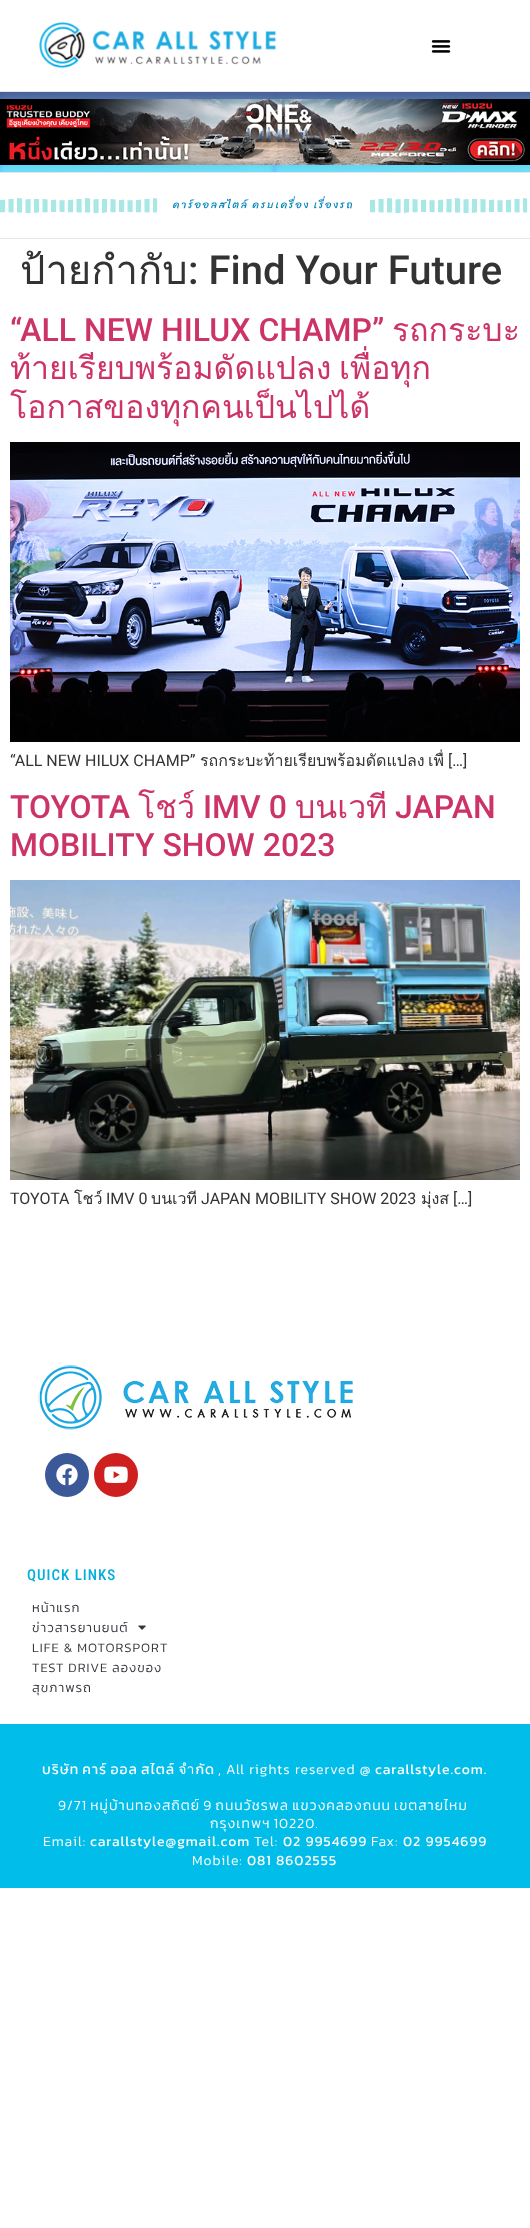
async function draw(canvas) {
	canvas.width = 530;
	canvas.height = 2228;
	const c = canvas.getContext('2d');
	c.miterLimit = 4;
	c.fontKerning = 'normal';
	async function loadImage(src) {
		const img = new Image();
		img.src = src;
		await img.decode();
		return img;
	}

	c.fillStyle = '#fff';
	c.fillRect(0, 0, 530, 2228);
	c.fillStyle = '#e7e7e7';
	c.fillRect(0, 91, 530, 1);
	c.drawImage(await loadImage('img1.png'), 39, 22, 238, 47);
	c.drawImage(await loadImage('img2.png'), 431, 40, 20, 13);
	c.fillStyle = '#e6e6e6';
	c.fillRect(0, 172, 530, 1);
	c.drawImage(await loadImage('img3.png'), 0, 92, 530, 80);
	c.drawImage(await loadImage('img4.png'), 0, 92, 530, 80);
	c.drawImage(await loadImage('img5.png'), 0, 99, 530, 66);
	c.fillRect(0, 238, 530, 1);
	c.drawImage(await loadImage('img6.png'), 0, 198, 158, 15);
	c.letterSpacing = '2px';
	c.wordSpacing = '-1px';
	c.font = '10px Sriracha';
	c.fillStyle = '#0085ba';
	c.fillText('คาร์ออลสไตล์ ครบเครื่อง เรื่องรถ', 173, 208);
	c.drawImage(await loadImage('img6.png'), 370, 198, 158, 15);
	c.letterSpacing = '0px';
	c.wordSpacing = '0px';
	c.font = '40px Loma';
	c.fillStyle = '#333';
	c.fillText('ป้ายกำกับ', 20, 284);
	c.font = '500 40px Roboto';
	c.fillText(': Find Your Future', 188, 284);
	c.font = '500 32px Roboto';
	c.fillStyle = '#c36';
	c.fillText('“ALL NEW HILUX CHAMP”', 10, 341);
	c.font = '32px Loma';
	c.fillText('รถกระบะ', 392, 341);
	c.wordSpacing = '-3px';
	c.fillText('ท้ายเรียบพร้อมดัดแปลง เพื่อทุก', 10, 379);
	c.wordSpacing = '0px';
	c.fillText('โอกาสของทุกคนเป็นไปได้', 10, 418);
	c.drawImage(await loadImage('img7.png'), 10, 442, 510, 300);
	c.font = '16px Roboto';
	c.fillStyle = '#333';
	c.fillText('“ALL NEW HILUX CHAMP”', 10, 766);
	c.font = '16px Loma';
	c.fillText('รถกระบะท้ายเรียบพร้อมดัดแปลง', 200, 766);
	c.fillText('เพื่', 428, 766);
	c.font = '16px Roboto';
	c.fillText('[…]', 448, 766);
	c.font = '500 32px Roboto';
	c.fillStyle = '#c36';
	c.fillText('TOYOTA', 10, 818);
	c.font = '32px Loma';
	c.fillText('โชว์', 138, 818);
	c.font = '500 32px Roboto';
	c.fillText('IMV 0', 203, 818);
	c.font = '32px Loma';
	c.fillText('บนเวที', 295, 818);
	c.font = '500 32px Roboto';
	c.fillText('JAPAN', 395, 818);
	c.fillText('MOBILITY SHOW 2023', 10, 856);
	c.drawImage(await loadImage('img8.png'), 10, 880, 510, 300);
	c.font = '16px Roboto';
	c.fillStyle = '#333';
	c.fillText('TOYOTA', 10, 1204);
	c.font = '16px Loma';
	c.fillText('โชว์', 74, 1204);
	c.font = '16px Roboto';
	c.fillText('IMV 0', 106, 1204);
	c.font = '16px Loma';
	c.fillText('บนเวที', 151, 1204);
	c.font = '16px Roboto';
	c.fillText('JAPAN MOBILITY SHOW 2023', 201, 1204);
	c.font = '16px Loma';
	c.fillText('มุ่งส', 421, 1204);
	c.font = '16px Roboto';
	c.fillText('[…]', 453, 1204);
	c.drawImage(await loadImage('img9.png'), 38, 1365, 315, 65);
	c.fillStyle = '#3b5998';
	c.beginPath();
	c.arc(67, 1475, 22, 0, 2 * Math.PI);
	c.fill();
	c.drawImage(await loadImage('img10.png'), 56, 1464, 22, 22);
	c.fillStyle = '#cd201f';
	c.beginPath();
	c.arc(116, 1475, 22, 0, 2 * Math.PI);
	c.fill();
	c.drawImage(await loadImage('img11.png'), 104, 1466, 24, 17);
	c.letterSpacing = '1px';
	c.font = '500 15px Roboto Condensed';
	c.fillStyle = '#00afdd';
	c.fillText('QUICK LINKS', 27, 1580);
	c.font = '300 13px Kanit';
	c.fillStyle = '#33373d';
	c.fillText('หน้าแรก', 32, 1612);
	c.fillText('ข่าวสารยานยนต์', 32, 1632);
	c.drawImage(await loadImage('img12.png'), 138, 1625, 8, 5);
	for (const [text, x, y] of [
		['LIFE & MOTORSPORT', 32, 1652],
		['TEST DRIVE ลองของ', 32, 1672],
		['สุขภาพรถ', 32, 1692],
	]) {
		c.fillText(text, x, y);
	}
	c.fillStyle = '#00bee9';
	c.fillRect(0, 1724, 530, 164);
	c.wordSpacing = '-1px';
	c.font = '14px Kanit';
	c.fillStyle = '#fff';
	c.fillText('บริษัท คาร์ ออล สไตล์ จำกัด', 42, 1774);
	c.wordSpacing = '0px';
	c.font = '300 14px Kanit';
	c.fillText(', All rights reserved @', 218, 1774);
	c.font = '14px Kanit';
	c.fillText('carallstyle.com.', 375, 1774);
	c.wordSpacing = '-1px';
	c.font = '300 14px Kanit';
	c.fillText('9/71 หมู่บ้านทองสถิตย์ 9 ถนนวัชรพล แขวงคลองถนน เขตสายไหม', 58, 1810);
	c.fillText('กรุงเทพฯ 10220.', 210, 1828);
	c.wordSpacing = '0px';
	c.fillText('Email:', 43, 1846);
	c.font = '14px Kanit';
	c.fillText('carallstyle@gmail.com', 90, 1846);
	c.font = '300 14px Kanit';
	c.fillText('Tel:', 254, 1846);
	c.font = '14px Kanit';
	c.fillText('02 9954699', 283, 1846);
	c.font = '300 14px Kanit';
	c.fillText('Fax:', 371, 1846);
	c.font = '14px Kanit';
	c.fillText('02 9954699', 403, 1846);
	c.font = '300 14px Kanit';
	c.fillText('Mobile:', 192, 1865);
	c.font = '14px Kanit';
	c.fillText('081 8602555', 247, 1865);
}

draw(document.querySelector('canvas'));
